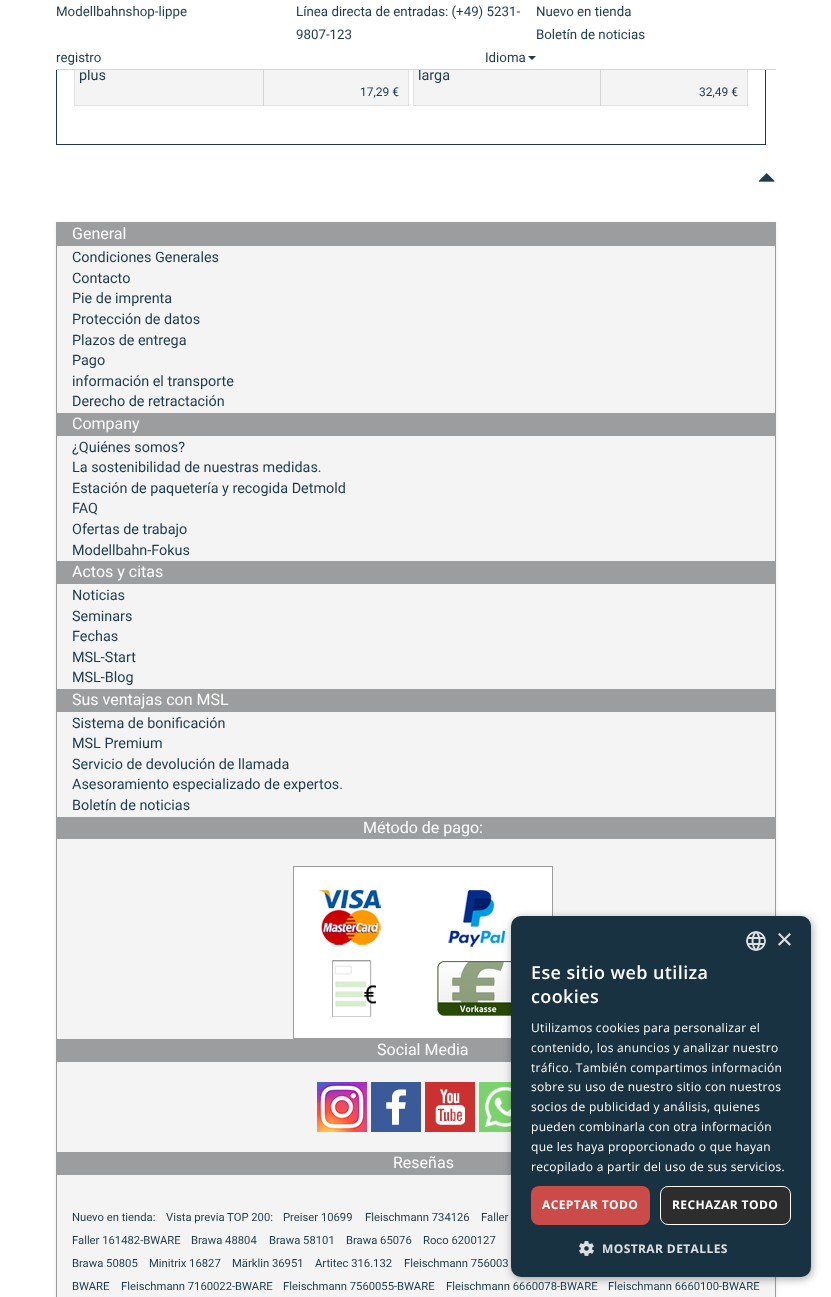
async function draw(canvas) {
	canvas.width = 831;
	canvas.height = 1297;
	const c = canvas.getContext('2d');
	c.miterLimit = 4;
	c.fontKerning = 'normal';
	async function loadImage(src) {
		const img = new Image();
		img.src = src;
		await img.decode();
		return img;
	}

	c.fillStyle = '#fff';
	c.fillRect(0, 0, 831, 1297);
	c.strokeStyle = '#1d3b4c';
	c.strokeRect(56.5, -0.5, 709, 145);
	c.fillStyle = '#f4f4f4';
	c.fillRect(75, 70, 333, 35);
	c.font = '14.4px Roboto';
	c.fillStyle = '#1d3b4c';
	c.fillText('plus', 79, 80);
	c.fillStyle = '#f4f4f4';
	c.fillRect(414, 70, 333, 35);
	c.fillStyle = '#1d3b4c';
	c.fillText('larga', 418, 80);
	c.fillStyle = '#fff';
	c.fillRect(56, 0, 710, 70);
	c.fillStyle = '#d4d5d7';
	c.fillRect(56, 69, 720, 1);
	c.font = '13.3px Roboto';
	c.fillStyle = '#1d3b4c';
	for (const [text, x, y] of [
		['Modellbahnshop-lippe', 56, 16],
		['Línea directa de entradas: (+49) 5231-', 296, 16],
		['9807-123', 296, 39],
		['Nuevo en tienda', 536, 16],
		['Boletín de noticias', 536, 39],
		['registro', 56, 62],
		['Idioma', 485, 62],
	]) {
		c.fillText(text, x, y);
	}
	c.fillStyle = '#1d3b4d';
	c.beginPath();
	c.moveTo(528, 56);
	c.lineTo(536, 56);
	c.lineTo(532, 60);
	c.closePath();
	c.fill();
	for (const [x, y, w, h, color] of [
		[408, 70, 1, 36, '#e1e2e1'],
		[74, 105, 335, 1, '#e1e2e1'],
		[74, 70, 1, 36, '#e1e2e1'],
		[263, 70, 1, 36, '#d4d5d7'],
	]) {
		c.fillStyle = color;
		c.fillRect(x, y, w, h);
	}
	c.font = '12px Roboto';
	c.fillStyle = '#1d3b4c';
	c.fillText('17,29 €', 360, 96);
	for (const [x, y, w, h, color] of [
		[747, 70, 1, 36, '#e1e2e1'],
		[413, 105, 335, 1, '#e1e2e1'],
		[413, 70, 1, 36, '#e1e2e1'],
		[600, 70, 1, 36, '#d4d5d7'],
	]) {
		c.fillStyle = color;
		c.fillRect(x, y, w, h);
	}
	c.fillStyle = '#1d3b4c';
	c.fillText('32,49 €', 699, 96);
	c.drawImage(await loadImage('img1.png'), 758, 173, 17, 9);
	c.fillStyle = '#00000012';
	c.filter = 'blur(2.5px)';
	c.beginPath();
	c.rect(56, 223, 720, 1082);
	c.fill();
	c.filter = 'none';
	c.fillStyle = '#9c9d9f';
	c.fillRect(56, 222, 720, 1075);
	c.fillStyle = '#f4f4f4';
	c.fillRect(57, 246, 718, 571);
	c.font = '16px Roboto';
	c.fillStyle = '#fff';
	c.fillText('General', 72, 239);
	c.font = '14.4px Roboto';
	c.fillStyle = '#1d3b4c';
	for (const [text, x, y] of [
		['Condiciones Generales', 72, 262],
		['Contacto', 72, 283],
		['Pie de imprenta', 72, 303],
		['Protección de datos', 72, 324],
		['Plazos de entrega', 72, 345],
		['Pago', 72, 365],
		['información el transporte', 72, 386],
		['Derecho de retractación', 72, 406],
	]) {
		c.fillText(text, x, y);
	}
	c.fillStyle = '#9c9d9f';
	c.fillRect(57, 413, 718, 23);
	c.font = '16px Roboto';
	c.fillStyle = '#fff';
	c.fillText('Company', 72, 429);
	c.font = '14.4px Roboto';
	c.fillStyle = '#1d3b4c';
	for (const [text, x, y] of [
		['¿Quiénes somos?', 72, 452],
		['La sostenibilidad de nuestras medidas.', 72, 472],
		['Estación de paquetería y recogida Detmold', 72, 493],
		['FAQ', 72, 513],
		['Ofertas de trabajo', 72, 534],
		['Modellbahn-Fokus', 72, 555],
	]) {
		c.fillText(text, x, y);
	}
	c.fillStyle = '#9c9d9f';
	c.fillRect(57, 561, 718, 23);
	c.font = '16px Roboto';
	c.fillStyle = '#fff';
	c.fillText('Actos y citas', 72, 577);
	c.font = '14.4px Roboto';
	c.fillStyle = '#1d3b4c';
	for (const [text, x, y] of [
		['Noticias', 72, 600],
		['Seminars', 72, 621],
		['Fechas', 72, 641],
		['MSL-Start', 72, 662],
		['MSL-Blog', 72, 682],
	]) {
		c.fillText(text, x, y);
	}
	c.fillStyle = '#9c9d9f';
	c.fillRect(57, 689, 718, 23);
	c.font = '16px Roboto';
	c.fillStyle = '#fff';
	c.fillText('Sus ventajas con MSL', 72, 705);
	c.font = '14.4px Roboto';
	c.fillStyle = '#1d3b4c';
	for (const [text, x, y] of [
		['Sistema de bonificación', 72, 728],
		['MSL Premium', 72, 748],
		['Servicio de devolución de llamada', 72, 769],
		['Asesoramiento especializado de expertos.', 72, 789],
		['Boletín de noticias', 72, 810],
	]) {
		c.fillText(text, x, y);
	}
	c.fillStyle = '#f4f4f4';
	c.fillRect(57, 839, 718, 458);
	c.font = '16px Roboto';
	c.fillStyle = '#fff';
	c.fillText('Método de pago:', 363, 833);
	c.drawImage(await loadImage('img2.png'), 293, 866, 260, 173);
	c.fillStyle = '#9c9d9f';
	c.fillRect(57, 1039, 454, 23);
	c.fillStyle = '#fff';
	c.fillText('Social Media', 377, 1055);
	c.drawImage(await loadImage('img3.png'), 317, 1082, 50, 50);
	c.drawImage(await loadImage('img4.png'), 371, 1082, 50, 50);
	c.drawImage(await loadImage('img5.png'), 425, 1082, 50, 50);
	c.drawImage(await loadImage('img6.png'), 479, 1082, 32, 50);
	c.fillStyle = '#9c9d9f';
	c.fillRect(57, 1152, 454, 23);
	c.fillStyle = '#fff';
	c.fillText('Reseñas', 393, 1168);
	c.font = '11.25px Roboto';
	c.fillStyle = '#1d3b4c';
	for (const [text, x, y] of [
		['Nuevo en tienda:', 72, 1221],
		['Vista previa TOP 200:', 166, 1221],
		['Preiser 10699', 283, 1221],
		['Fleischmann 734126', 365, 1221],
		['Faller', 481, 1221],
		['Faller 161482-BWARE', 72, 1244],
		['Brawa 48804', 191, 1244],
		['Brawa 58101', 269, 1244],
		['Brawa 65076', 346, 1244],
		['Roco 6200127', 423, 1244],
		['Brawa 50805', 72, 1267],
		['Minitrix 16827', 149, 1267],
		['Märklin 36951', 232, 1267],
		['Artitec 316.132', 315, 1267],
		['Fleischmann 756003', 404, 1267],
		['BWARE', 72, 1290],
		['Fleischmann 7160022-BWARE', 121, 1290],
		['Fleischmann 7560055-BWARE', 283, 1290],
		['Fleischmann 6660078-BWARE', 446, 1290],
		['Fleischmann 6660100-BWARE', 608, 1290],
	]) {
		c.fillText(text, x, y);
	}
	c.fillStyle = '#00000059';
	c.filter = 'blur(4px)';
	c.beginPath();
	c.roundRect(512, 918, 300, 361, 10);
	c.fill();
	c.filter = 'none';
	c.fillStyle = '#193241';
	c.beginPath();
	c.roundRect(511, 916, 300, 361, 10);
	c.fill();
	c.drawImage(await loadImage('img7.png'), 746, 931, 20, 20);
	c.font = '29px Liberation Sans';
	c.fillStyle = '#dde0e3';
	c.fillText('×', 776, 949);
	c.letterSpacing = '0.4px';
	c.font = '600 18px Open Sans';
	c.fillStyle = '#fff';
	c.fillText('Ese sitio web utiliza', 531, 979);
	c.fillText('cookies', 531, 1003);
	c.letterSpacing = '0.3px';
	c.font = '12px Open Sans';
	for (const [text, x, y] of [
		['Utilizamos cookies para personalizar el', 531, 1032],
		['contenido, los anuncios y analizar nuestro', 531, 1052],
		['tráfico. También compartimos información', 531, 1072],
		['sobre su uso de nuestro sitio con nuestros', 531, 1091],
		['socios de publicidad y análisis, quienes', 531, 1111],
		['pueden combinarla con otra información', 531, 1131],
		['que les haya proporcionado o que hayan', 531, 1151],
		['recopilado a partir del uso de sus servicios.', 531, 1171],
	]) {
		c.fillText(text, x, y);
	}
	c.fillStyle = '#cb4b48';
	c.beginPath();
	c.roundRect(531, 1186, 119, 39, 8);
	c.fill();
	c.letterSpacing = '0.4px';
	c.font = 'bold 12px Open Sans';
	c.fillStyle = '#fff';
	c.fillText('ACEPTAR TODO', 542, 1209);
	c.fillStyle = '#2d2d2d';
	c.beginPath();
	c.roundRect(660.5, 1186.5, 130, 38, 7.5);
	c.fill();
	c.strokeStyle = '#fff';
	c.stroke();
	c.fillStyle = '#fff';
	c.fillText('RECHAZAR TODO', 672, 1209);
	c.drawImage(await loadImage('img8.png'), 579, 1241, 15, 15);
	c.fillStyle = '#dde0e3';
	c.fillText('MOSTRAR DETALLES', 602, 1253);
}

draw(document.querySelector('canvas'));
